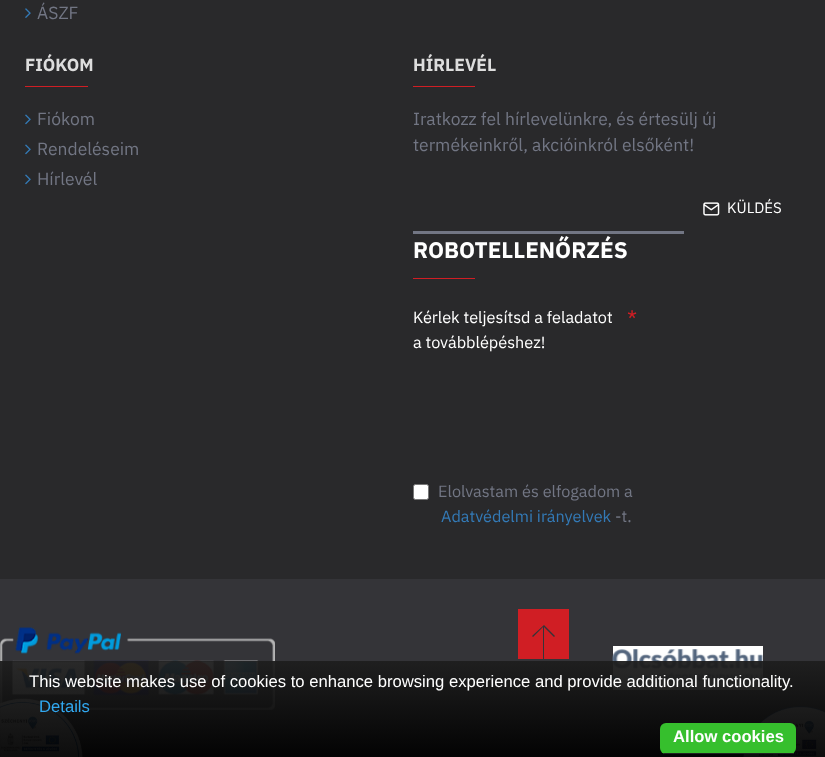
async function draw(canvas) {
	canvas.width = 825;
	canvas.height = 757;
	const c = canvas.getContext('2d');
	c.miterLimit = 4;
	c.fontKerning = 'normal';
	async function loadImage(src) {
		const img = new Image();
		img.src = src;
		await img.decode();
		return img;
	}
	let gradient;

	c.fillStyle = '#29292b';
	c.fillRect(0, 0, 825, 757);
	c.drawImage(await loadImage('img1.png'), 25, 8, 6, 10);
	c.font = '17.5px IBM Plex Sans';
	c.fillStyle = '#727684';
	c.fillText('ÁSZF', 37, 19);
	c.font = 'bold 17.5px IBM Plex Sans';
	c.fillStyle = '#ddd';
	c.fillText('FIÓKOM', 25, 71);
	c.fillStyle = '#d01e24';
	c.fillRect(25, 86, 63, 1);
	c.drawImage(await loadImage('img2.png'), 25, 114, 6, 11);
	c.font = '17.5px IBM Plex Sans';
	c.fillStyle = '#727684';
	c.fillText('Fiókom', 37, 125);
	c.drawImage(await loadImage('img2.png'), 25, 144, 6, 11);
	c.fillText('Rendeléseim', 37, 155);
	c.drawImage(await loadImage('img2.png'), 25, 174, 6, 11);
	c.fillText('Hírlevél', 37, 185);
	c.font = 'bold 17.5px IBM Plex Sans';
	c.fillStyle = '#ddd';
	c.fillText('HÍRLEVÉL', 413, 71);
	c.fillStyle = '#d01e24';
	c.fillRect(413, 86, 62, 1);
	c.font = '17.5px IBM Plex Sans';
	c.fillStyle = '#727684';
	c.fillText('Iratkozz fel hírlevelünkre, és értesülj új', 413, 125);
	c.fillText('termékeinkről, akcióinkról elsőként!', 413, 151);
	c.drawImage(await loadImage('img3.png'), 703, 202, 17, 14);
	c.font = '15px IBM Plex Sans';
	c.fillStyle = '#fff';
	c.fillText('KÜLDÉS', 727, 213);
	c.fillStyle = '#727684';
	c.fillRect(413, 231, 271, 3);
	c.font = 'bold 22.5px IBM Plex Sans';
	c.fillStyle = '#fff';
	c.fillText('ROBOTELLENŐRZÉS', 413, 258);
	c.fillStyle = '#d01e24';
	c.fillRect(413, 278, 62, 1);
	c.font = '16.25px IBM Plex Sans';
	c.fillStyle = '#fff';
	c.fillText('Kérlek teljesítsd a feladatot', 413, 323);
	c.font = '22.5px IBM Plex Sans';
	c.fillStyle = '#d01e24';
	c.fillText('*', 627, 327);
	c.font = '16.25px IBM Plex Sans';
	c.fillStyle = '#fff';
	c.fillText('a továbblépéshez!', 413, 348);
	c.beginPath();
	c.roundRect(413.5, 484.5, 15, 15, 2);
	c.fill();
	c.strokeStyle = '#767676';
	c.stroke();
	c.fillStyle = '#727684';
	c.fillText('Elolvastam és elfogadom a', 438, 497);
	c.fillStyle = '#337ab7';
	c.fillText('Adatvédelmi irányelvek', 441, 522);
	c.fillStyle = '#727684';
	c.fillText('-t.', 615, 522);
	c.fillStyle = '#343438';
	c.fillRect(0, 579, 825, 178);
	c.drawImage(await loadImage('img4.png'), 0, 627, 275, 83);
	c.fillStyle = '#fff';
	c.fillRect(613, 646, 150, 44);
	c.drawImage(await loadImage('img5.png'), 612, 649, 151, 34);
	c.fillStyle = '#d01e24';
	c.beginPath();
	c.moveTo(543, 659);
	c.lineTo(543, 627);
	c.lineTo(533, 637);
	c.lineTo(532, 636);
	c.lineTo(544, 625);
	c.lineTo(555, 636);
	c.lineTo(554, 637);
	c.lineTo(544, 627);
	c.lineTo(544, 659);
	c.lineTo(569, 659);
	c.lineTo(569, 609);
	c.lineTo(518, 609);
	c.lineTo(518, 659);
	c.closePath();
	c.fill();
	c.drawImage(await loadImage('img6.png'), 0, 698, 83, 59);
	c.drawImage(await loadImage('img7.png'), 742, 706, 83, 51);
	gradient = c.createLinearGradient(413, 661, 413, 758);
	gradient.addColorStop(0, '#1e1e1ef2');
	gradient.addColorStop(1, '#000000f2');
	c.fillStyle = gradient;
	c.fillRect(0, 661, 825, 96);
	c.font = '16.65px Liberation Sans';
	c.fillStyle = '#fff';
	c.fillText('This website makes use of cookies to enhance browsing experience and provide additional functionality.', 29, 687);
	c.fillStyle = '#31a8f0';
	c.fillText('Details', 39, 712);
	c.fillStyle = '#36bf2d';
	c.beginPath();
	c.roundRect(660, 723, 136, 31, 6);
	c.fill();
	c.fillStyle = '#222';
	c.fillRect(664, 753, 130, 1);
	c.font = 'bold 16.65px Liberation Sans';
	c.fillStyle = '#fff';
	c.fillText('Allow cookies', 673, 742);
}

draw(document.querySelector('canvas'));
